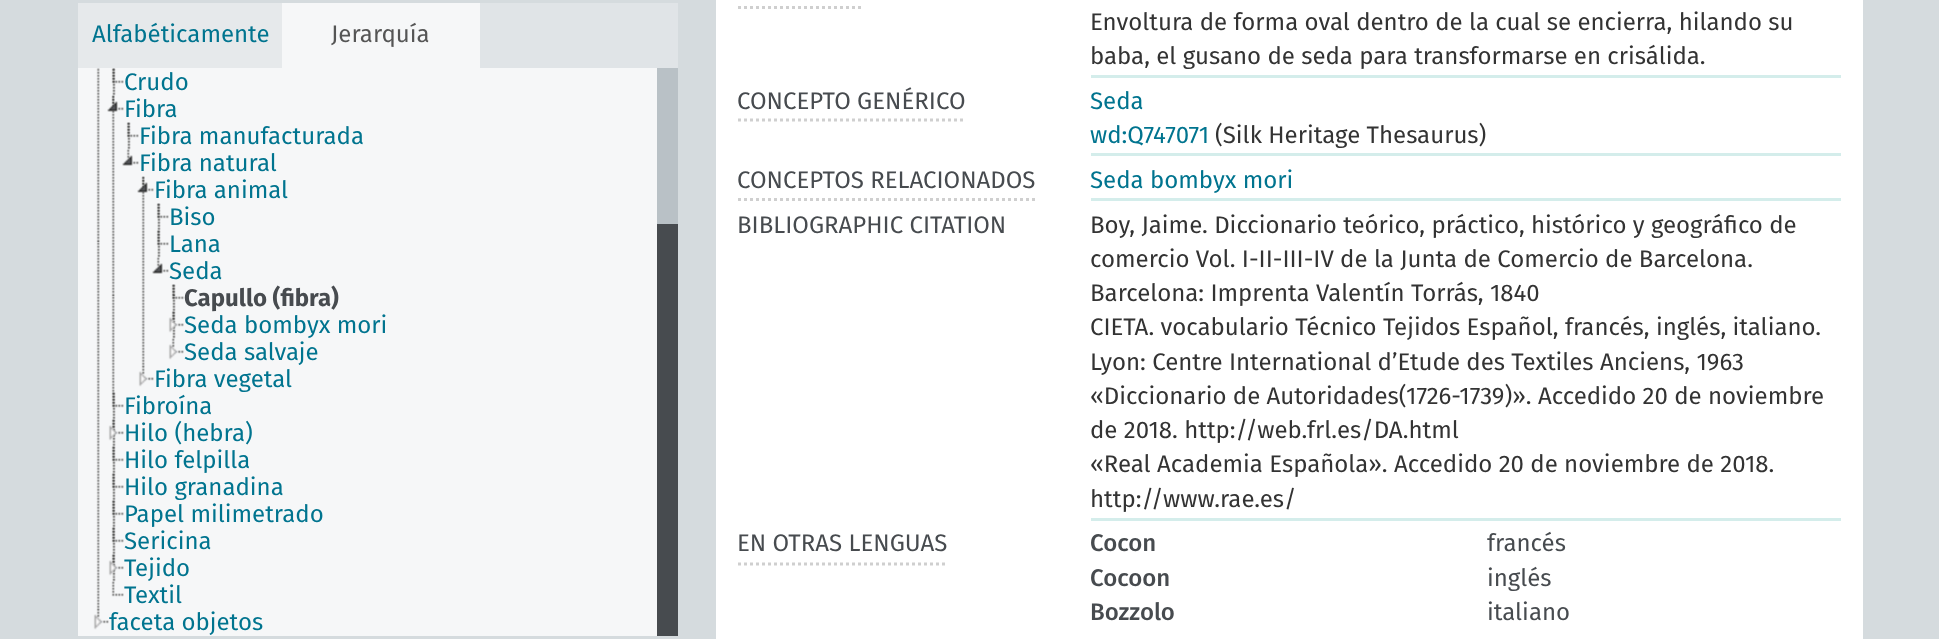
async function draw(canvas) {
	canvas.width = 1939;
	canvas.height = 639;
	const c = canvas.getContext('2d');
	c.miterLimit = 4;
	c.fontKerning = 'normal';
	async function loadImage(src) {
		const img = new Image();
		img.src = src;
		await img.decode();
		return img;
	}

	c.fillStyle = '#d5dbde';
	c.fillRect(0, 0, 1939, 639);
	c.fillStyle = '#e0e4e7';
	c.fillRect(480, 3, 198, 65);
	c.fillStyle = '#e6e9eb';
	c.fillRect(78, 3, 204, 65);
	c.font = '24px Fira Sans';
	c.fillStyle = '#00748f';
	c.fillText('Alfabéticamente', 92, 42);
	c.fillStyle = '#f6f7f8';
	c.fillRect(282, 3, 198, 65);
	c.fillStyle = '#555';
	c.fillText('Jerarquía', 331, 42);
	c.fillStyle = '#f6f7f8';
	c.fillRect(78, 68, 579, 568);
	c.drawImage(await loadImage('img1.png'), 96, 68, 4, 542);
	c.drawImage(await loadImage('img2.png'), 113, 68, 2, 1);
	c.drawImage(await loadImage('img3.png'), 112, 68, 4, 28);
	c.drawImage(await loadImage('img4.png'), 111, 68, 13, 16);
	c.fillStyle = '#00748f';
	c.fillText('Crudo', 124, 90);
	c.drawImage(await loadImage('img5.png'), 111, 95, 4, 299);
	c.drawImage(await loadImage('img6.png'), 107, 95, 17, 17);
	c.fillText('Fibra', 124, 117);
	c.drawImage(await loadImage('img7.png'), 127, 122, 4, 28);
	c.drawImage(await loadImage('img8.png'), 126, 122, 13, 16);
	c.fillText('Fibra manufacturada', 139, 144);
	c.drawImage(await loadImage('img9.png'), 122, 149, 17, 17);
	c.fillText('Fibra natural', 139, 171);
	c.drawImage(await loadImage('img10.png'), 141, 176, 4, 191);
	c.drawImage(await loadImage('img11.png'), 137, 176, 17, 17);
	c.fillText('Fibra animal', 154, 198);
	c.drawImage(await loadImage('img7.png'), 157, 203, 4, 28);
	c.drawImage(await loadImage('img8.png'), 156, 203, 13, 16);
	c.fillText('Biso', 169, 225);
	c.drawImage(await loadImage('img12.png'), 157, 230, 4, 28);
	c.drawImage(await loadImage('img13.png'), 156, 230, 13, 16);
	c.fillText('Lana', 169, 252);
	c.drawImage(await loadImage('img9.png'), 152, 257, 17, 17);
	c.fillText('Seda', 169, 279);
	c.drawImage(await loadImage('img14.png'), 172, 284, 4, 28);
	c.drawImage(await loadImage('img15.png'), 171, 284, 13, 16);
	c.font = 'bold 24px Fira Sans';
	c.fillStyle = '#474b4f';
	c.fillText('Capullo (fibra)', 184, 306);
	c.drawImage(await loadImage('img12.png'), 172, 311, 4, 28);
	c.drawImage(await loadImage('img16.png'), 168, 311, 16, 22);
	c.font = '24px Fira Sans';
	c.fillStyle = '#00748f';
	c.fillText('Seda bombyx mori', 184, 333);
	c.drawImage(await loadImage('img17.png'), 168, 338, 16, 22);
	c.fillText('Seda salvaje', 184, 360);
	c.drawImage(await loadImage('img18.png'), 138, 365, 16, 22);
	c.fillText('Fibra vegetal', 154, 387);
	c.drawImage(await loadImage('img19.png'), 112, 392, 4, 28);
	c.drawImage(await loadImage('img20.png'), 111, 392, 13, 16);
	c.fillText('Fibroína', 124, 414);
	c.drawImage(await loadImage('img12.png'), 112, 419, 4, 28);
	c.drawImage(await loadImage('img21.png'), 108, 419, 16, 22);
	c.fillText('Hilo (hebra)', 124, 441);
	c.drawImage(await loadImage('img12.png'), 112, 446, 4, 28);
	c.drawImage(await loadImage('img13.png'), 111, 446, 13, 16);
	c.fillText('Hilo felpilla', 124, 468);
	c.drawImage(await loadImage('img12.png'), 112, 473, 4, 28);
	c.drawImage(await loadImage('img13.png'), 111, 473, 13, 16);
	c.fillText('Hilo granadina', 124, 495);
	c.drawImage(await loadImage('img12.png'), 112, 500, 4, 28);
	c.drawImage(await loadImage('img13.png'), 111, 500, 13, 16);
	c.fillText('Papel milimetrado', 124, 522);
	c.drawImage(await loadImage('img12.png'), 112, 527, 4, 28);
	c.drawImage(await loadImage('img13.png'), 111, 527, 13, 16);
	c.fillText('Sericina', 124, 549);
	c.drawImage(await loadImage('img22.png'), 112, 554, 4, 28);
	c.drawImage(await loadImage('img21.png'), 108, 554, 16, 22);
	c.fillText('Tejido', 124, 576);
	c.drawImage(await loadImage('img23.png'), 111, 581, 13, 16);
	c.fillText('Textil', 124, 603);
	c.drawImage(await loadImage('img18.png'), 93, 608, 16, 22);
	c.fillText('faceta objetos', 109, 630);
	for (const [x, y, w, h, color] of [
		[657, 68, 21, 156, '#b9c1c6'],
		[657, 224, 21, 412, '#474b4f'],
		[716, 0, 1147, 639, '#fff'],
	]) {
		c.fillStyle = color;
		c.fillRect(x, y, w, h);
	}
	c.beginPath();
	c.moveTo(738, 7.5);
	c.lineTo(861, 7.5);
	c.strokeStyle = '#cfcfcf';
	c.lineWidth = 3;
	c.setLineDash([3, 3]);
	c.stroke();
	c.fillStyle = '#d4edeb';
	c.fillRect(1091, 75, 750, 3);
	c.fillStyle = '#333';
	c.fillText('Envoltura de forma oval dentro de la cual se encierra, hilando su', 1090, 30);
	c.fillText('baba, el gusano de seda para transformarse en crisálida.', 1090, 64);
	c.beginPath();
	c.moveTo(738, 120);
	c.lineTo(966, 120);
	c.stroke();
	c.fillStyle = '#474b4f';
	c.fillText('CONCEPTO GENÉRICO', 737, 109);
	c.fillStyle = '#d4edeb';
	c.fillRect(1091, 153, 750, 3);
	c.fillStyle = '#00748f';
	c.fillText('Seda', 1090, 109);
	c.fillText('wd:Q747071', 1090, 143);
	c.fillStyle = '#333';
	c.fillText('(Silk Heritage Thesaurus)', 1215, 143);
	c.beginPath();
	c.moveTo(738, 199.5);
	c.lineTo(1035, 199.5);
	c.stroke();
	c.fillStyle = '#474b4f';
	c.fillText('CONCEPTOS RELACIONADOS', 737, 188);
	c.fillStyle = '#d4edeb';
	c.fillRect(1091, 198, 750, 3);
	c.fillStyle = '#00748f';
	c.fillText('Seda bombyx mori', 1090, 188);
	c.fillStyle = '#474b4f';
	c.fillText('BIBLIOGRAPHIC CITATION', 737, 233);
	c.fillStyle = '#d4edeb';
	c.fillRect(1091, 518, 750, 3);
	c.fillStyle = '#333';
	for (const [text, x, y] of [
		['Boy, Jaime. Diccionario teórico, práctico, histórico y geográfico de', 1090, 233],
		['comercio Vol. I-II-III-IV de la Junta de Comercio de Barcelona.', 1090, 267],
		['Barcelona: Imprenta Valentín Torrás, 1840', 1090, 301],
		['CIETA. vocabulario Técnico Tejidos Español, francés, inglés, italiano.', 1090, 335],
		['Lyon: Centre International d’Etude des Textiles Anciens, 1963', 1090, 370],
		['«Diccionario de Autoridades(1726-1739)». Accedido 20 de noviembre', 1090, 404],
		['de 2018. http://web.frl.es/DA.html', 1090, 438],
		['«Real Academia Española». Accedido 20 de noviembre de 2018.', 1090, 472],
		['http://www.rae.es/', 1090, 507],
	]) {
		c.fillText(text, x, y);
	}
	c.beginPath();
	c.moveTo(738, 564);
	c.lineTo(948, 564);
	c.stroke();
	c.fillStyle = '#474b4f';
	c.fillText('EN OTRAS LENGUAS', 737, 551);
	c.font = '500 24px Fira Sans';
	c.fillText('Cocon', 1090, 551);
	c.font = '24px Fira Sans';
	c.fillText('francés', 1487, 551);
	c.font = '500 24px Fira Sans';
	c.fillText('Cocoon', 1090, 586);
	c.font = '24px Fira Sans';
	c.fillText('inglés', 1487, 586);
	c.font = '500 24px Fira Sans';
	c.fillText('Bozzolo', 1090, 620);
	c.font = '24px Fira Sans';
	c.fillText('italiano', 1487, 620);
}

draw(document.querySelector('canvas'));
